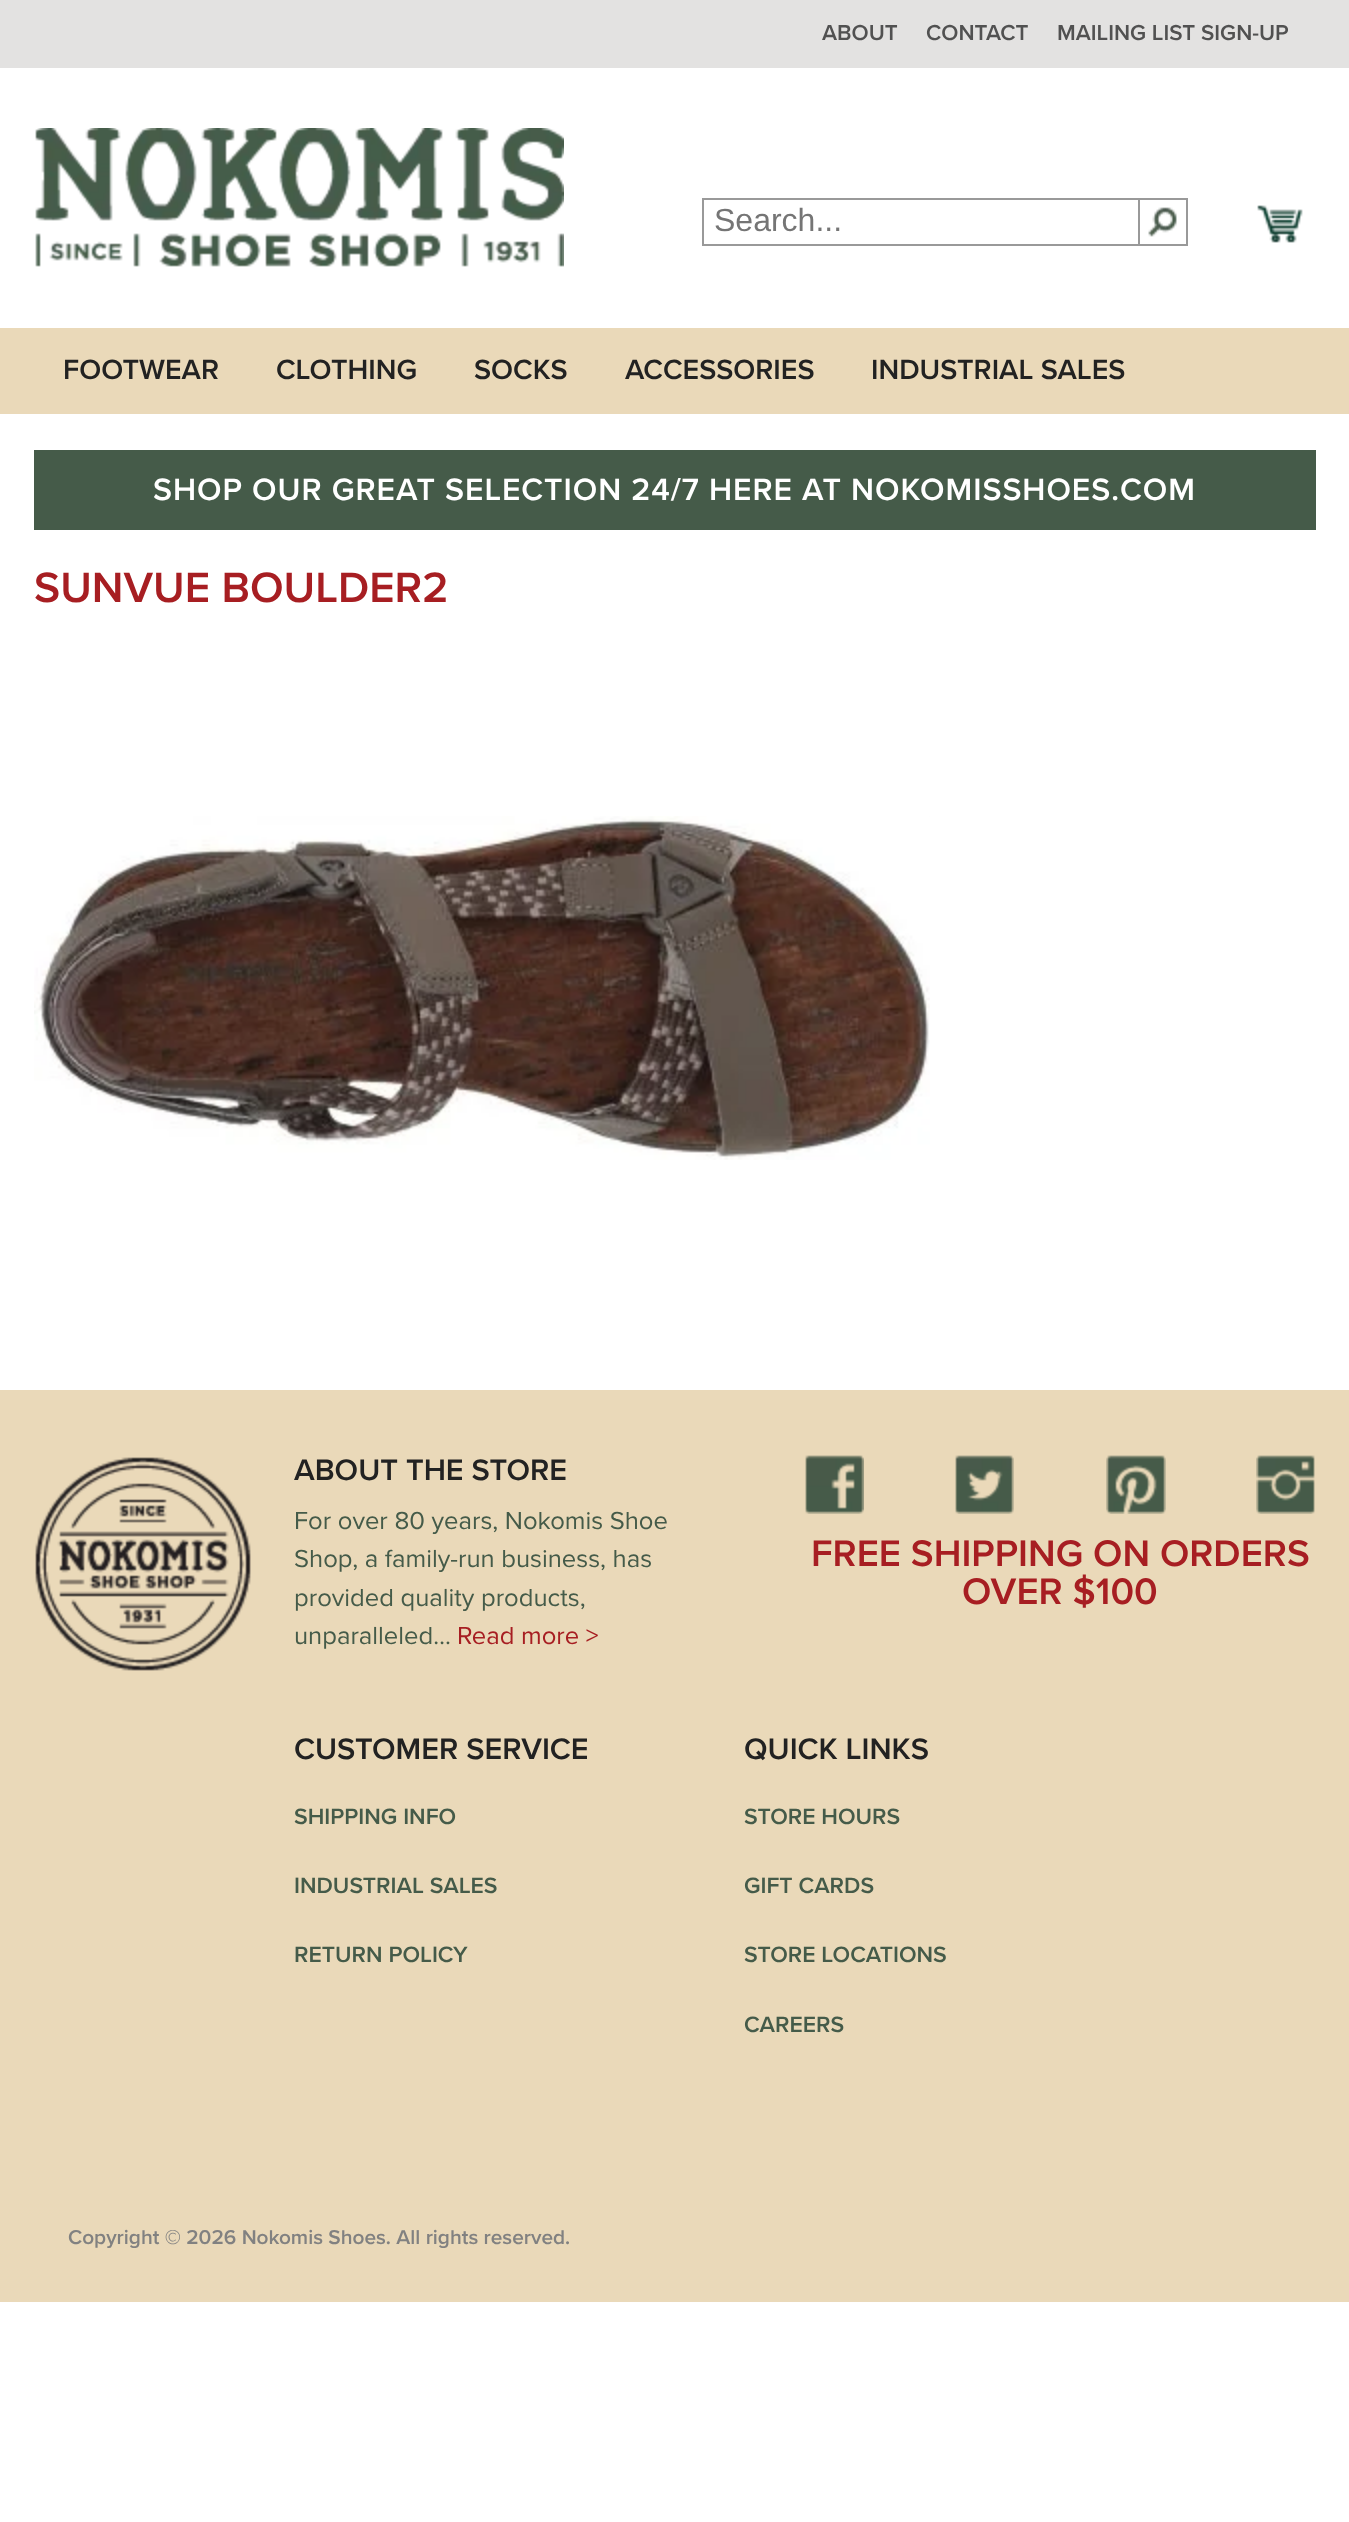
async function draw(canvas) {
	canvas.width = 1349;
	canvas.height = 2522;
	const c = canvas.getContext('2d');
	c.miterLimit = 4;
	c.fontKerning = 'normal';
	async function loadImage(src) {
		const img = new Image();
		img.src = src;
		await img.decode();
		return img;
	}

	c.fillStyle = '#fff';
	c.fillRect(0, 0, 1349, 2522);
	c.fillStyle = '#e3e2e1';
	c.fillRect(0, 0, 1349, 68);
	c.font = '600 22.4px Proxima Nova';
	c.fillStyle = '#515151';
	for (const [text, x, y] of [
		['ABOUT', 822, 40],
		['CONTACT', 926, 40],
		['MAILING LIST SIGN-UP', 1057, 40],
	]) {
		c.fillText(text, x, y);
	}
	c.drawImage(await loadImage('img1.png'), 35, 128, 529, 139);
	c.fillStyle = '#ead9b9';
	c.fillRect(0, 328, 1349, 86);
	c.strokeStyle = '#999';
	c.lineWidth = 2;
	c.strokeRect(703, 199, 436, 46);
	c.font = '32px Liberation Sans';
	c.fillStyle = '#757575';
	c.fillText('Search...', 714, 231);
	c.drawImage(await loadImage('img2.png'), 1148, 207, 29, 30);
	for (const [x, y, w, h, color] of [
		[1140, 198, 48, 2, '#999'],
		[1186, 198, 2, 48, '#999'],
		[1140, 244, 48, 2, '#999'],
	]) {
		c.fillStyle = color;
		c.fillRect(x, y, w, h);
	}
	c.drawImage(await loadImage('img3.png'), 1257, 205, 46, 38);
	c.font = '600 28.75px Proxima Nova';
	c.fillStyle = '#222';
	for (const [text, x, y] of [
		['FOOTWEAR', 63, 379],
		['CLOTHING', 276, 379],
		['SOCKS', 474, 379],
		['ACCESSORIES', 625, 379],
		['INDUSTRIAL SALES', 871, 379],
	]) {
		c.fillText(text, x, y);
	}
	c.fillStyle = '#455b49';
	c.fillRect(34, 450, 1282, 80);
	c.letterSpacing = '0.95px';
	c.font = '600 32px Proxima Nova';
	c.fillStyle = '#fff';
	c.fillText('SHOP OUR GREAT SELECTION 24/7 HERE AT NOKOMISSHOES.COM', 153, 500);
	c.letterSpacing = '0px';
	c.font = '600 44px Proxima Nova';
	c.fillStyle = '#a71e22';
	c.fillText('SUNVUE BOULDER2', 34, 602);
	c.drawImage(await loadImage('img4.png'), 34, 816, 896, 344);
	c.fillStyle = '#ead9b9';
	c.fillRect(0, 1390, 1349, 912);
	c.drawImage(await loadImage('img5.png'), 35, 1457, 216, 214);
	c.font = '600 30.75px Proxima Nova';
	c.fillStyle = '#222';
	c.fillText('ABOUT THE STORE', 294, 1480);
	c.font = '25.6px Proxima Nova';
	c.fillStyle = '#455b49';
	for (const [text, x, y] of [
		['For over 80 years, Nokomis Shoe', 294, 1529],
		['Shop, a family-run business, has', 294, 1567],
		['provided quality products,', 294, 1606],
		['unparalleled…', 294, 1644],
	]) {
		c.fillText(text, x, y);
	}
	c.fillStyle = '#a71e22';
	c.fillText('Read more >', 457, 1644);
	c.drawImage(await loadImage('img6.png'), 805, 1455, 59, 59);
	c.drawImage(await loadImage('img7.png'), 955, 1455, 59, 59);
	c.drawImage(await loadImage('img8.png'), 1106, 1455, 60, 59);
	c.drawImage(await loadImage('img9.png'), 1256, 1455, 59, 59);
	c.font = '600 38.4px Proxima Nova';
	c.fillText('FREE SHIPPING ON ORDERS', 811, 1566);
	c.fillText('OVER $100', 962, 1604);
	c.font = '600 30.75px Proxima Nova';
	c.fillStyle = '#222';
	c.fillText('CUSTOMER SERVICE', 294, 1759);
	c.font = '600 23px Proxima Nova';
	c.fillStyle = '#455b49';
	for (const [text, x, y] of [
		['SHIPPING INFO', 294, 1824],
		['INDUSTRIAL SALES', 294, 1893],
		['RETURN POLICY', 294, 1962],
	]) {
		c.fillText(text, x, y);
	}
	c.font = '600 30.75px Proxima Nova';
	c.fillStyle = '#222';
	c.fillText('QUICK LINKS', 744, 1759);
	c.font = '600 23px Proxima Nova';
	c.fillStyle = '#455b49';
	for (const [text, x, y] of [
		['STORE HOURS', 744, 1824],
		['GIFT CARDS', 744, 1893],
		['STORE LOCATIONS', 744, 1962],
		['CAREERS', 744, 2032],
	]) {
		c.fillText(text, x, y);
	}
	c.font = '600 20.8px Proxima Nova';
	c.fillStyle = '#818181';
	c.fillText('Copyright © 2026 Nokomis Shoes. All rights reserved.', 68, 2244);
}

draw(document.querySelector('canvas'));
